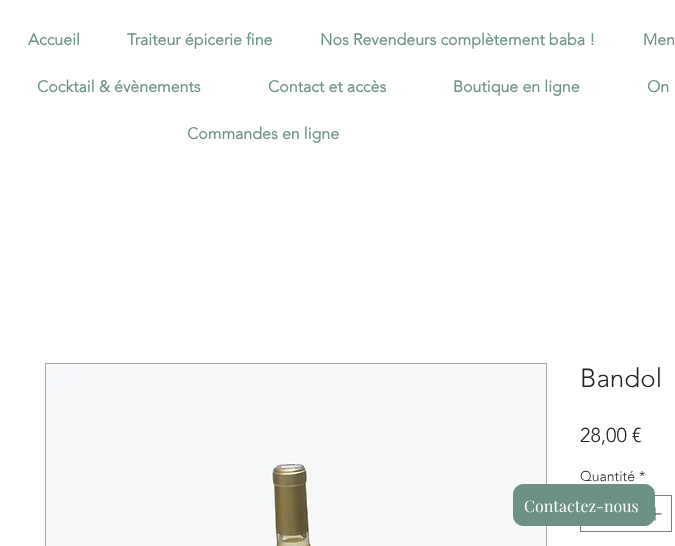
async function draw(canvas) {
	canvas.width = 675;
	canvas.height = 546;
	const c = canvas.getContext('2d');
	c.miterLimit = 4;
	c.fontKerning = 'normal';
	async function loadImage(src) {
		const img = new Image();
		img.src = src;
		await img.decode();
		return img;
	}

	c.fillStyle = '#fff';
	c.fillRect(0, 0, 675, 546);
	c.font = 'bold 16px "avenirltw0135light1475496"';
	c.fillStyle = '#6d9485';
	for (const [text, x, y] of [
		['Accueil', 28, 45],
		['Traiteur épicerie fine', 127, 45],
		['Nos Revendeurs complètement baba !', 320, 45],
		['Men', 643, 45],
		['Cocktail & évènements', 37, 92],
		['Contact et accès', 268, 92],
		['Boutique en ligne', 453, 92],
		['On', 647, 92],
		['Commandes en ligne', 187, 139],
	]) {
		c.fillText(text, x, y);
	}
	c.strokeStyle = '#ada9a0';
	c.strokeRect(45.5, 363.5, 501, 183);
	c.drawImage(await loadImage('img1.png'), 46, 364, 500, 182);
	c.font = '300 26px "avenirltw0135light1475496"';
	c.fillStyle = '#272521';
	c.fillText('Bandol', 580, 387);
	c.font = '300 20px "avenirltw0135light1475496"';
	c.fillText('28,00 €', 580, 442);
	c.font = '300 14px "avenirltw0135light1475496"';
	c.fillText('Quantité', 580, 481);
	c.fillText('*', 639, 481);
	c.strokeStyle = '#7d7c7a';
	c.strokeRect(580.5, 495.5, 91, 36);
	c.drawImage(await loadImage('img2.png'), 654, 507, 8, 14);
	c.fillStyle = '#6c9284';
	c.beginPath();
	c.roundRect(513.5, 484.5, 141, 41, 9.5);
	c.fill();
	c.strokeStyle = '#6c9284';
	c.stroke();
	c.font = '16px Playfair Display';
	c.fillStyle = '#fff';
	c.fillText('Contactez-nous', 524, 512);
}

draw(document.querySelector('canvas'));
